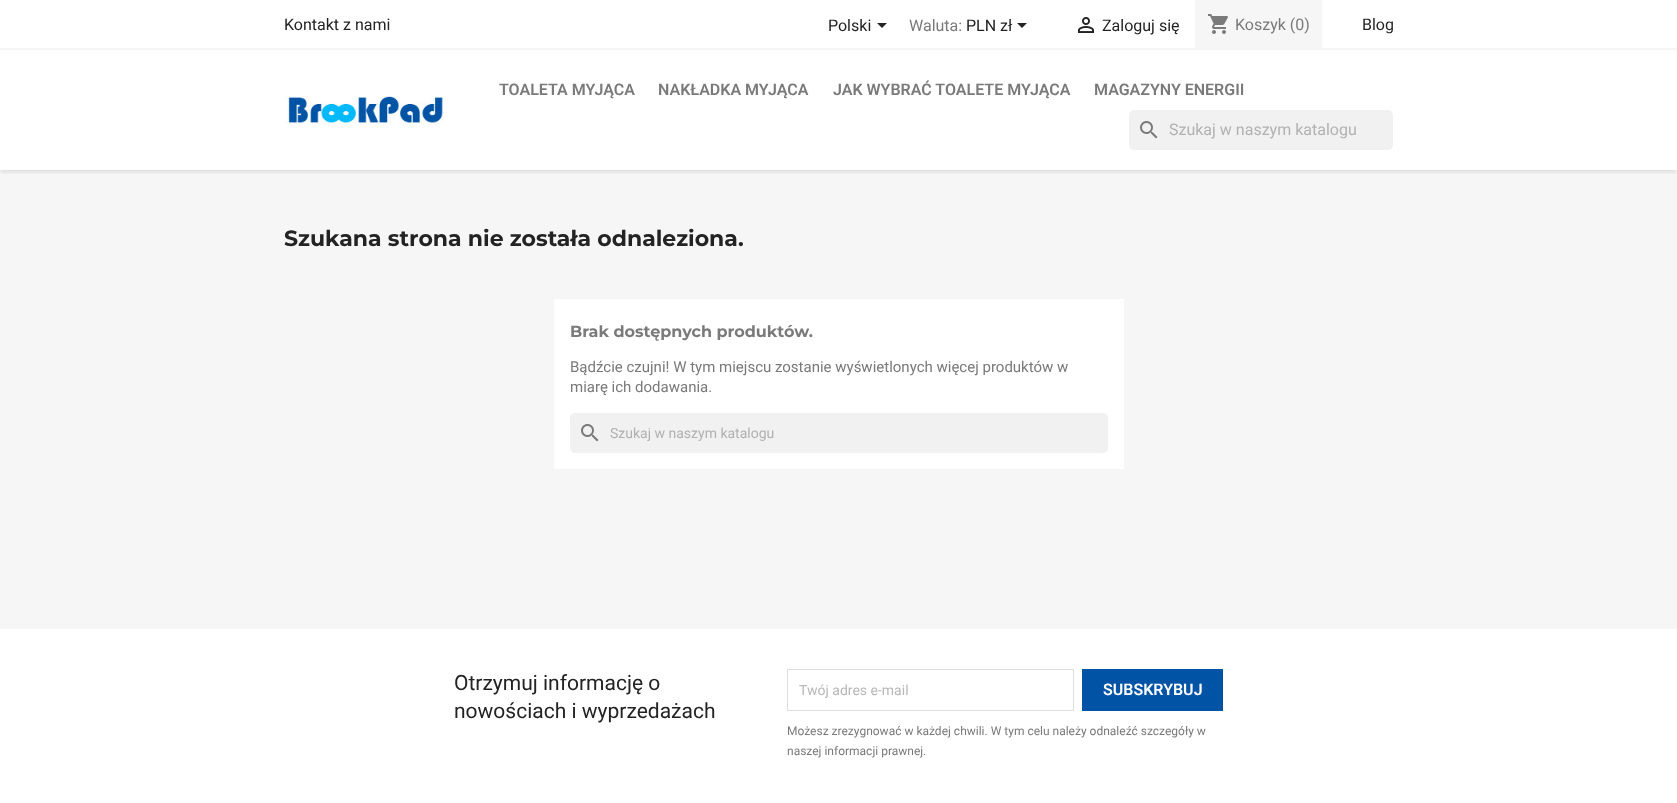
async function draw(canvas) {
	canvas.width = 1677;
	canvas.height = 803;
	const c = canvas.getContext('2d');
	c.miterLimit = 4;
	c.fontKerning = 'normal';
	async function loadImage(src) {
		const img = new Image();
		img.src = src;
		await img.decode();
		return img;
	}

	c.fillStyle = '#fff';
	c.fillRect(0, 0, 1677, 803);
	c.fillStyle = '#f6f6f6';
	c.fillRect(0, 170, 1677, 459);
	c.save();
	c.beginPath();
	c.rect(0, 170, 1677, 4);
	c.clip();
	c.fillStyle = '#0000001c';
	c.filter = 'blur(2.5px)';
	c.beginPath();
	c.rect(0, 2, 1677, 170);
	c.fill();
	c.filter = 'none';
	c.restore();
	c.fillRect(0, 48, 1677, 2);
	c.font = '16px Roboto';
	c.fillStyle = '#232323';
	c.fillText('Kontakt z nami', 284, 30);
	c.fillText('Polski', 828, 31);
	c.beginPath();
	c.moveTo(877, 23);
	c.lineTo(887, 23);
	c.lineTo(882, 28);
	c.closePath();
	c.fill();
	c.fillStyle = '#7a7a7a';
	c.fillText('Waluta:', 909, 31);
	c.fillStyle = '#232323';
	c.fillText('PLN zł', 966, 31);
	c.beginPath();
	c.moveTo(1017, 23);
	c.lineTo(1027, 23);
	c.lineTo(1022, 28);
	c.closePath();
	c.fill();
	c.drawImage(await loadImage('img1.png'), 1078, 17, 16, 16);
	c.fillText('Zaloguj się', 1102, 31);
	c.fillStyle = '#f6f6f6';
	c.fillRect(1195, 0, 127, 48);
	c.drawImage(await loadImage('img2.png'), 1208, 14, 20, 20);
	c.fillStyle = '#7a7a7a';
	c.fillText('Koszyk (0)', 1235, 30);
	c.fillStyle = '#232323';
	c.fillText('Blog', 1362, 30);
	c.drawImage(await loadImage('img3.png'), 284, 96, 160, 28);
	c.font = '600 16px Roboto';
	c.fillStyle = '#7a7a7a';
	for (const [text, x, y] of [
		['TOALETA MYJĄCA', 499, 95],
		['NAKŁADKA MYJĄCA', 658, 95],
		['JAK WYBRAĆ TOALETE MYJĄCA', 833, 95],
		['MAGAZYNY ENERGII', 1094, 95],
	]) {
		c.fillText(text, x, y);
	}
	c.fillStyle = '#f1f1f1';
	c.beginPath();
	c.roundRect(1129, 110, 264, 40, 5);
	c.fill();
	c.drawImage(await loadImage('img4.png'), 1140, 121, 18, 18);
	c.font = '16px Roboto';
	c.fillStyle = '#b1b1b1';
	c.fillText('Szukaj w naszym katalogu', 1169, 135);
	c.font = 'bold 22px Montserrat';
	c.fillStyle = '#232323';
	c.fillText('Szukana strona nie została odnaleziona.', 284, 246);
	c.fillStyle = '#fff';
	c.fillRect(554, 299, 570, 170);
	c.font = 'bold 16px Montserrat';
	c.fillStyle = '#7a7a7a';
	c.fillText('Brak dostępnych produktów.', 570, 337);
	c.font = '15px Roboto';
	c.fillText('Bądźcie czujni! W tym miejscu zostanie wyświetlonych więcej produktów w', 570, 372);
	c.fillText('miarę ich dodawania.', 570, 392);
	c.fillStyle = '#f1f1f1';
	c.beginPath();
	c.roundRect(570, 413, 538, 40, 5);
	c.fill();
	c.drawImage(await loadImage('img4.png'), 581, 424, 18, 18);
	c.font = '14px Roboto';
	c.fillStyle = '#b1b1b1';
	c.fillText('Szukaj w naszym katalogu', 610, 438);
	c.font = '21px Roboto';
	c.fillStyle = '#232323';
	c.fillText('Otrzymuj informację o', 454, 690);
	c.fillText('nowościach i wyprzedażach', 454, 718);
	c.strokeStyle = '#ddd';
	c.strokeRect(787.5, 669.5, 286, 41);
	c.font = '14px Roboto';
	c.fillStyle = '#b7b7b7';
	c.fillText('Twój adres e-mail', 799, 695);
	c.fillStyle = '#0053a5';
	c.fillRect(1082, 669, 141, 42);
	c.font = '600 16px Roboto';
	c.fillStyle = '#fff';
	c.fillText('SUBSKRYBUJ', 1103, 695);
	c.font = '12px Roboto';
	c.fillStyle = '#7a7a7a';
	c.fillText('Możesz zrezygnować w każdej chwili. W tym celu należy odnaleźć szczegóły w', 787, 735);
	c.fillText('naszej informacji prawnej.', 787, 755);
}

draw(document.querySelector('canvas'));
